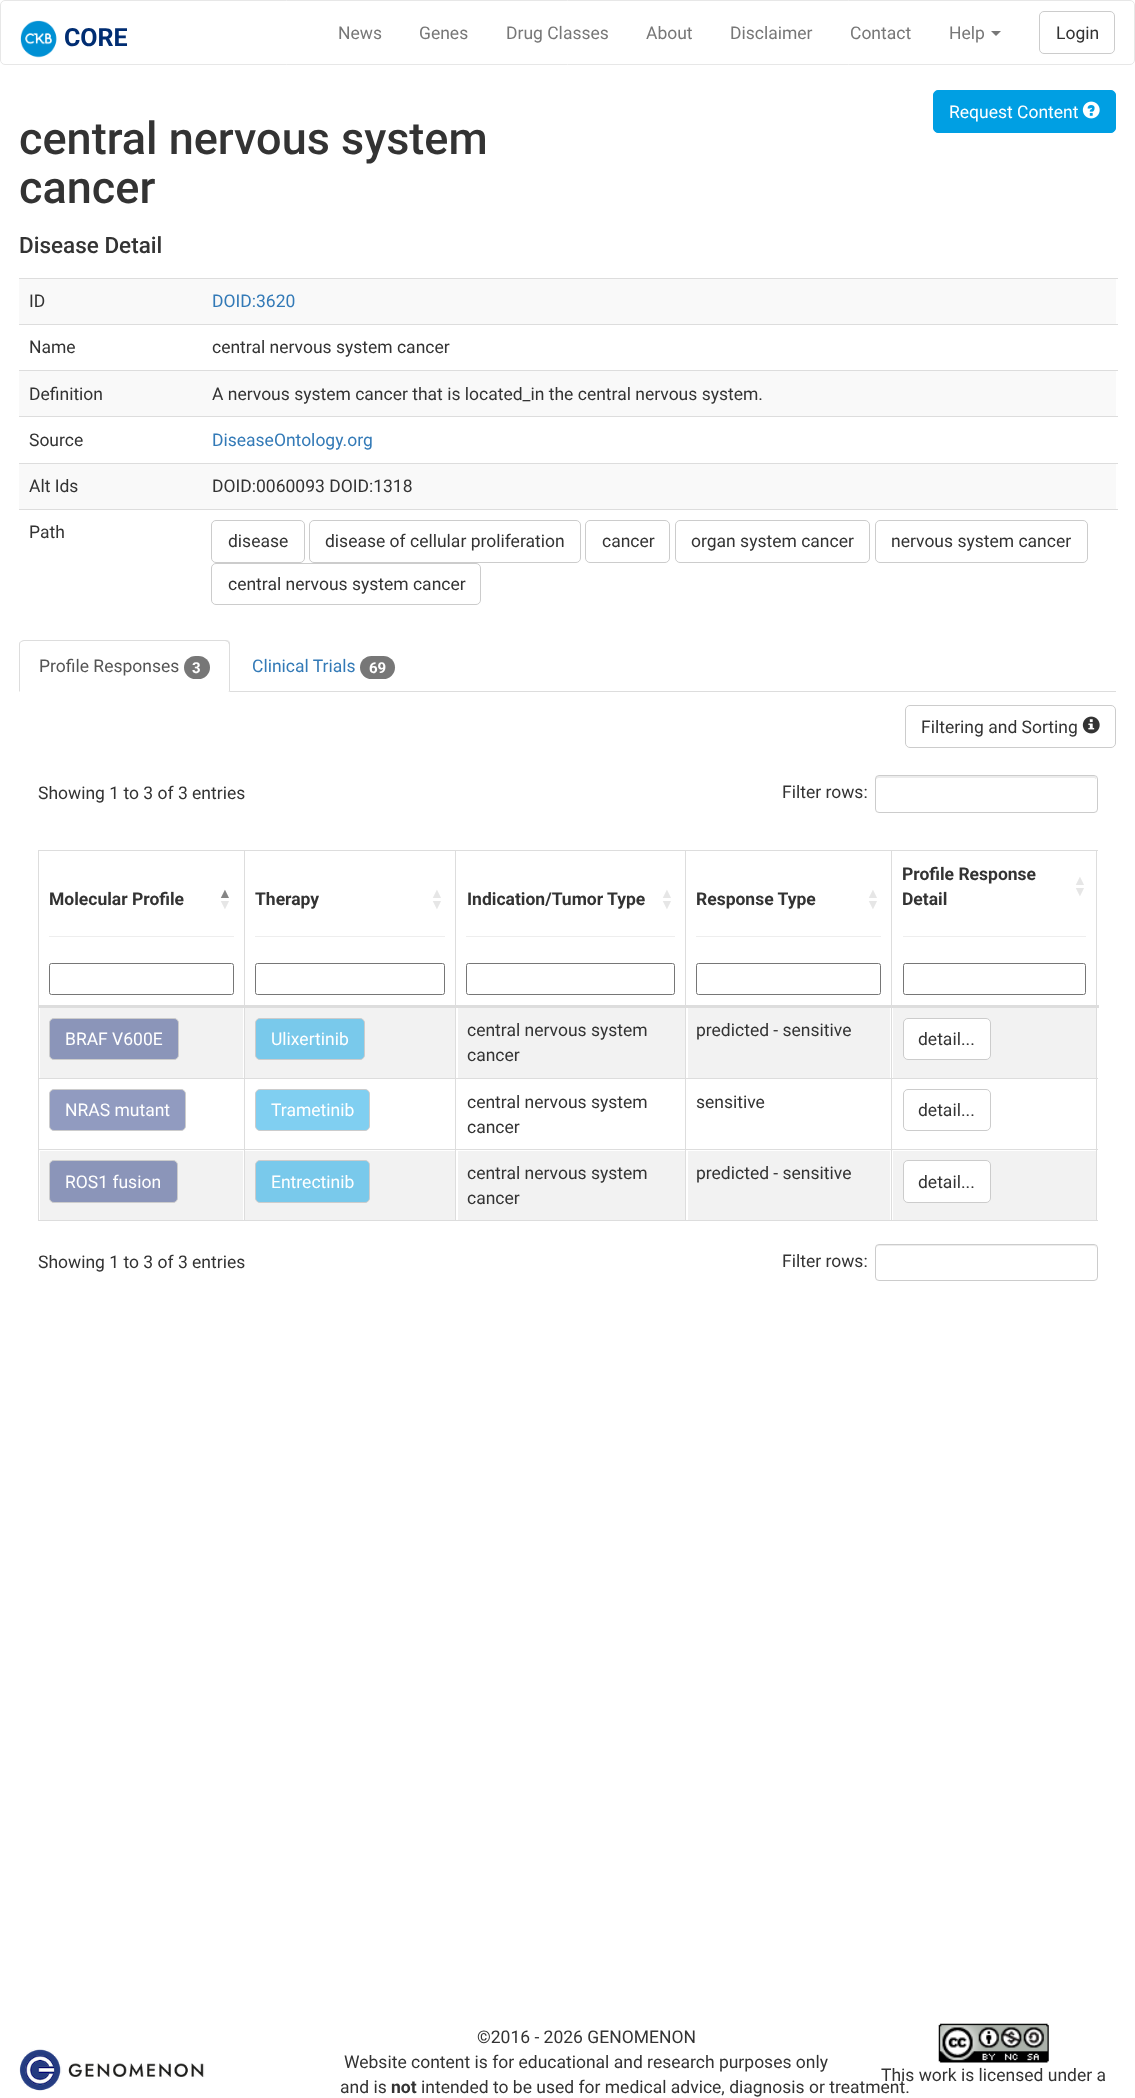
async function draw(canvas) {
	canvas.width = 1135;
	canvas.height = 2098;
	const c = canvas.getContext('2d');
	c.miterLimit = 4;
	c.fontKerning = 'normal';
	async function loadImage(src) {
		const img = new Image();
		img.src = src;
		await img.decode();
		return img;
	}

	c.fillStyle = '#fff';
	c.fillRect(0, 0, 1135, 2098);
	c.beginPath();
	c.roundRect(0.5, 0.5, 1134, 64, 4.5);
	c.strokeStyle = '#e7e7e7';
	c.stroke();
	c.drawImage(await loadImage('img1.png'), 20, 20, 37, 38);
	c.font = 'bold 25px Roboto';
	c.fillStyle = '#002d72';
	c.fillText('CORE', 64, 46);
	c.font = '17.5px Roboto';
	c.fillStyle = '#777';
	for (const [text, x, y] of [
		['News', 338, 39],
		['Genes', 419, 39],
		['Drug Classes', 506, 39],
		['About', 646, 39],
		['Disclaimer', 730, 39],
		['Contact', 850, 39],
		['Help', 949, 39],
	]) {
		c.fillText(text, x, y);
	}
	c.beginPath();
	c.moveTo(991, 31);
	c.lineTo(1001, 31);
	c.lineTo(996, 36);
	c.closePath();
	c.fill();
	c.beginPath();
	c.roundRect(1039.5, 11.5, 75, 42, 4.5);
	c.strokeStyle = '#ccc';
	c.stroke();
	c.fillStyle = '#333';
	c.fillText('Login', 1056, 39);
	c.fillStyle = '#009fe3';
	c.beginPath();
	c.roundRect(933.5, 90.5, 182, 42, 4.5);
	c.fill();
	c.strokeStyle = '#009fe3';
	c.stroke();
	c.fillStyle = '#fff';
	c.fillText('Request Content', 949, 118);
	c.drawImage(await loadImage('img2.png'), 1082, 101, 18, 18);
	c.font = '500 45px Roboto';
	c.fillStyle = '#333';
	c.fillText('central nervous system', 19, 154);
	c.fillText('cancer', 19, 203);
	c.font = '500 22.5px Roboto';
	c.fillText('Disease Detail', 19, 253);
	c.fillStyle = '#f9f9f9';
	c.fillRect(19, 279, 1097, 45);
	c.font = '17.5px Roboto';
	c.fillStyle = '#333';
	c.fillText('ID', 29, 307);
	c.fillStyle = '#ddd';
	c.fillRect(19, 278, 1099, 1);
	c.fillStyle = '#337ab7';
	c.fillText('DOID:3620', 212, 307);
	c.fillStyle = '#333';
	c.fillText('Name', 29, 353);
	c.fillStyle = '#ddd';
	c.fillRect(19, 324, 1099, 1);
	c.fillStyle = '#333';
	c.fillText('central nervous system cancer', 212, 353);
	c.fillStyle = '#f9f9f9';
	c.fillRect(19, 371, 1097, 45);
	c.fillStyle = '#333';
	c.fillText('Definition', 29, 400);
	c.fillStyle = '#ddd';
	c.fillRect(19, 370, 1099, 1);
	c.fillStyle = '#333';
	c.fillText('A nervous system cancer that is located_in the central nervous system.', 212, 400);
	c.fillText('Source', 29, 446);
	c.fillStyle = '#ddd';
	c.fillRect(19, 416, 1099, 1);
	c.fillStyle = '#337ab7';
	c.fillText('DiseaseOntology.org', 212, 446);
	c.fillStyle = '#f9f9f9';
	c.fillRect(19, 464, 1097, 45);
	c.fillStyle = '#333';
	c.fillText('Alt Ids', 29, 492);
	c.fillStyle = '#ddd';
	c.fillRect(19, 463, 1099, 1);
	c.fillStyle = '#333';
	c.fillText('DOID:0060093 DOID:1318', 212, 492);
	c.fillText('Path', 29, 538);
	c.fillStyle = '#ddd';
	c.fillRect(19, 509, 1099, 1);
	c.beginPath();
	c.roundRect(211.5, 520.5, 93, 42, 4.5);
	c.strokeStyle = '#ccc';
	c.stroke();
	c.fillStyle = '#333';
	c.fillText('disease', 228, 547);
	c.beginPath();
	c.roundRect(309.5, 520.5, 271, 42, 4.5);
	c.stroke();
	c.fillText('disease of cellular proliferation', 325, 547);
	c.beginPath();
	c.roundRect(585.5, 520.5, 84, 42, 4.5);
	c.stroke();
	c.fillText('cancer', 602, 547);
	c.beginPath();
	c.roundRect(675.5, 520.5, 194, 42, 4.5);
	c.stroke();
	c.fillText('organ system cancer', 691, 547);
	c.beginPath();
	c.roundRect(875.5, 520.5, 212, 42, 4.5);
	c.stroke();
	c.fillText('nervous system cancer', 891, 547);
	c.beginPath();
	c.roundRect(211.5, 563.5, 269, 41, 4.5);
	c.stroke();
	c.fillText('central nervous system cancer', 228, 590);
	c.fillStyle = '#ddd';
	c.fillRect(230, 691, 886, 1);
	c.beginPath();
	c.moveTo(24, 640);
	c.bezierCurveTo(22, 640, 21, 641, 20, 642);
	c.lineTo(21, 642);
	c.lineTo(24, 641);
	c.lineTo(225, 641);
	c.lineTo(228, 642);
	c.lineTo(229, 641);
	c.bezierCurveTo(228, 640, 226, 640, 225, 640);
	c.closePath();
	c.fill();
	c.beginPath();
	c.moveTo(230, 692);
	c.lineTo(230, 645);
	c.bezierCurveTo(230, 644, 230, 642, 229, 641);
	c.lineTo(228, 642);
	c.bezierCurveTo(228, 643, 229, 644, 229, 645);
	c.lineTo(229, 691);
	c.lineTo(228, 691);
	c.closePath();
	c.fill();
	c.beginPath();
	c.moveTo(20, 642);
	c.bezierCurveTo(19, 642, 19, 644, 19, 645);
	c.lineTo(19, 692);
	c.lineTo(20, 691);
	c.lineTo(20, 645);
	c.bezierCurveTo(20, 644, 20, 643, 21, 642);
	c.closePath();
	c.fill();
	c.fillStyle = '#555';
	c.fillText('Profile Responses', 39, 672);
	c.fillStyle = '#777';
	c.beginPath();
	c.roundRect(184, 656, 26, 23, 11.5);
	c.fill();
	c.font = 'bold 15px Roboto';
	c.fillStyle = '#fff';
	c.fillText('3', 192, 673);
	c.font = '17.5px Roboto';
	c.fillStyle = '#337ab7';
	c.fillText('Clinical Trials', 252, 672);
	c.fillStyle = '#777';
	c.beginPath();
	c.roundRect(360, 656, 35, 23, 11.5);
	c.fill();
	c.font = 'bold 15px Roboto';
	c.fillStyle = '#fff';
	c.fillText('69', 369, 673);
	c.beginPath();
	c.roundRect(905.5, 705.5, 210, 42, 4.5);
	c.stroke();
	c.font = '17.5px Roboto';
	c.fillStyle = '#333';
	c.fillText('Filtering and Sorting', 921, 733);
	c.drawImage(await loadImage('img3.png'), 1082, 716, 18, 18);
	c.fillText('Showing 1 to 3 of 3 entries', 38, 799);
	c.fillText('Filter rows:', 782, 798);
	c.fillStyle = '#ececec';
	c.beginPath();
	c.moveTo(879, 778);
	c.lineTo(1094, 778);
	c.bezierCurveTo(1095, 778, 1096, 779, 1096, 780);
	c.lineTo(1096, 778);
	c.bezierCurveTo(1096, 777, 1095, 776, 1094, 776);
	c.lineTo(878, 776);
	c.bezierCurveTo(877, 776, 876, 777, 876, 778);
	c.lineTo(876, 780);
	c.bezierCurveTo(876, 779, 877, 778, 879, 778);
	c.closePath();
	c.fill();
	c.beginPath();
	c.roundRect(875.5, 775.5, 222, 37, 3.5);
	c.stroke();
	for (const [x, y, w, h, color] of [
		[38, 850, 1060, 1, '#ddd'],
		[1096, 850, 1, 371, '#ddd'],
		[38, 1220, 1060, 1, '#ddd'],
		[38, 850, 1, 371, '#ddd'],
	]) {
		c.fillStyle = color;
		c.fillRect(x, y, w, h);
	}
	c.font = 'bold 17.5px Roboto';
	c.fillStyle = '#333';
	c.fillText('Molecular Profile', 49, 905);
	c.font = 'bold 14px Liberation Sans';
	c.fillStyle = '#858585';
	c.fillText('▲', 218, 898);
	c.fillStyle = '#e6e6e6';
	c.fillText('▼', 218, 909);
	c.fillStyle = '#eee';
	c.fillRect(49, 936, 185, 1);
	c.beginPath();
	c.roundRect(49.5, 963.5, 184, 31, 2);
	c.strokeStyle = '#767676';
	c.stroke();
	c.font = 'bold 17.5px Roboto';
	c.fillStyle = '#333';
	c.fillText('Therapy', 255, 905);
	c.font = 'bold 14px Liberation Sans';
	c.fillStyle = '#e6e6e6';
	c.fillText('▲', 430, 898);
	c.fillText('▼', 430, 909);
	c.fillStyle = '#eee';
	c.fillRect(255, 936, 190, 1);
	c.beginPath();
	c.roundRect(255.5, 963.5, 189, 31, 2);
	c.stroke();
	c.font = 'bold 17.5px Roboto';
	c.fillStyle = '#333';
	c.fillText('Indication/Tumor Type', 467, 905);
	c.font = 'bold 14px Liberation Sans';
	c.fillStyle = '#e6e6e6';
	c.fillText('▲', 660, 898);
	c.fillText('▼', 660, 909);
	c.fillStyle = '#eee';
	c.fillRect(466, 936, 209, 1);
	c.beginPath();
	c.roundRect(466.5, 963.5, 208, 31, 2);
	c.stroke();
	c.font = 'bold 17.5px Roboto';
	c.fillStyle = '#333';
	c.fillText('Response Type', 696, 905);
	c.font = 'bold 14px Liberation Sans';
	c.fillStyle = '#e6e6e6';
	c.fillText('▲', 866, 898);
	c.fillText('▼', 866, 909);
	c.fillStyle = '#eee';
	c.fillRect(696, 936, 185, 1);
	c.beginPath();
	c.roundRect(696.5, 963.5, 184, 31, 2);
	c.stroke();
	for (const [x, y, w, h, color] of [
		[891, 1078, 207, 1, '#ddd'],
		[891, 1149, 207, 1, '#ddd'],
		[891, 1149, 1, 72, '#ddd'],
		[685, 1149, 208, 1, '#ddd'],
		[891, 1078, 1, 72, '#ddd'],
		[685, 1078, 208, 1, '#ddd'],
		[685, 1149, 1, 72, '#ddd'],
		[455, 1149, 231, 1, '#ddd'],
		[685, 1078, 1, 72, '#ddd'],
		[455, 1078, 231, 1, '#ddd'],
		[455, 1149, 1, 72, '#ddd'],
		[244, 1149, 212, 1, '#ddd'],
		[455, 1078, 1, 72, '#ddd'],
		[244, 1078, 212, 1, '#ddd'],
		[244, 1149, 1, 72, '#ddd'],
		[38, 1149, 207, 1, '#ddd'],
		[244, 1078, 1, 72, '#ddd'],
		[38, 1078, 207, 1, '#ddd'],
		[244, 850, 1, 229, '#ddd'],
		[455, 850, 1, 229, '#ddd'],
		[685, 850, 1, 229, '#ddd'],
		[891, 850, 1, 229, '#ddd'],
		[38, 1005, 1061, 3, '#ddd'],
	]) {
		c.fillStyle = color;
		c.fillRect(x, y, w, h);
	}
	c.font = 'bold 17.5px Roboto';
	c.fillStyle = '#333';
	c.fillText('Profile Response', 902, 880);
	c.fillText('Detail', 902, 905);
	c.font = 'bold 14px Liberation Sans';
	c.fillStyle = '#e6e6e6';
	c.fillText('▲', 1073, 885);
	c.fillText('▼', 1073, 896);
	c.fillStyle = '#eee';
	c.fillRect(903, 936, 183, 1);
	c.beginPath();
	c.roundRect(903.5, 963.5, 182, 31, 2);
	c.stroke();
	c.fillStyle = '#f2f2f2';
	c.fillRect(40, 1008, 203, 70);
	c.fillStyle = '#8b95b9';
	c.beginPath();
	c.roundRect(49.5, 1018.5, 129, 41, 4.5);
	c.fill();
	c.strokeStyle = '#ccc';
	c.stroke();
	c.font = '17.5px Roboto';
	c.fillStyle = '#fff';
	c.fillText('BRAF V600E', 65, 1045);
	c.fillStyle = '#f2f2f2';
	c.fillRect(245, 1008, 210, 70);
	c.fillStyle = '#79c9eb';
	c.beginPath();
	c.roundRect(255.5, 1018.5, 109, 41, 4.5);
	c.fill();
	c.stroke();
	c.fillStyle = '#fff';
	c.fillText('Ulixertinib', 271, 1045);
	c.fillStyle = '#f2f2f2';
	c.fillRect(458, 1008, 227, 70);
	c.fillStyle = '#333';
	c.fillText('central nervous system', 467, 1036);
	c.fillText('cancer', 467, 1061);
	c.fillStyle = '#f2f2f2';
	c.fillRect(688, 1008, 202, 70);
	c.fillStyle = '#333';
	c.fillText('predicted - sensitive', 696, 1036);
	c.fillStyle = '#f2f2f2';
	c.fillRect(893, 1008, 203, 70);
	c.fillStyle = '#fff';
	c.beginPath();
	c.roundRect(903.5, 1018.5, 87, 41, 4.5);
	c.fill();
	c.stroke();
	c.fillStyle = '#333';
	c.fillText('detail...', 918, 1045);
	c.fillStyle = '#919bc0';
	c.beginPath();
	c.roundRect(49.5, 1089.5, 136, 41, 4.5);
	c.fill();
	c.stroke();
	c.fillStyle = '#fff';
	c.fillText('NRAS mutant', 65, 1116);
	c.fillStyle = '#80cff1';
	c.beginPath();
	c.roundRect(255.5, 1089.5, 114, 41, 4.5);
	c.fill();
	c.stroke();
	c.fillStyle = '#fff';
	c.fillText('Trametinib', 271, 1116);
	c.fillStyle = '#333';
	for (const [text, x, y] of [
		['central nervous system', 467, 1108],
		['cancer', 467, 1133],
		['sensitive', 696, 1108],
	]) {
		c.fillText(text, x, y);
	}
	c.beginPath();
	c.roundRect(903.5, 1089.5, 87, 41, 4.5);
	c.stroke();
	c.fillText('detail...', 918, 1116);
	c.fillStyle = '#f2f2f2';
	c.fillRect(40, 1151, 203, 69);
	c.fillStyle = '#8b95b9';
	c.beginPath();
	c.roundRect(49.5, 1160.5, 128, 42, 4.5);
	c.fill();
	c.stroke();
	c.fillStyle = '#fff';
	c.fillText('ROS1 fusion', 65, 1188);
	c.fillStyle = '#f2f2f2';
	c.fillRect(245, 1151, 210, 69);
	c.fillStyle = '#79c9eb';
	c.beginPath();
	c.roundRect(255.5, 1160.5, 114, 42, 4.5);
	c.fill();
	c.stroke();
	c.fillStyle = '#fff';
	c.fillText('Entrectinib', 271, 1188);
	c.fillStyle = '#f2f2f2';
	c.fillRect(458, 1151, 227, 69);
	c.fillStyle = '#333';
	c.fillText('central nervous system', 467, 1179);
	c.fillText('cancer', 467, 1204);
	c.fillStyle = '#f2f2f2';
	c.fillRect(688, 1151, 202, 69);
	c.fillStyle = '#333';
	c.fillText('predicted - sensitive', 696, 1179);
	c.fillStyle = '#f2f2f2';
	c.fillRect(893, 1151, 203, 69);
	c.fillStyle = '#fff';
	c.beginPath();
	c.roundRect(903.5, 1160.5, 87, 42, 4.5);
	c.fill();
	c.stroke();
	c.fillStyle = '#333';
	for (const [text, x, y] of [
		['detail...', 918, 1188],
		['Showing 1 to 3 of 3 entries', 38, 1268],
		['Filter rows:', 782, 1267],
	]) {
		c.fillText(text, x, y);
	}
	c.fillStyle = '#ececec';
	c.beginPath();
	c.moveTo(879, 1246);
	c.lineTo(1094, 1246);
	c.bezierCurveTo(1095, 1246, 1096, 1247, 1096, 1249);
	c.lineTo(1096, 1248);
	c.bezierCurveTo(1096, 1246, 1095, 1245, 1094, 1245);
	c.lineTo(878, 1245);
	c.bezierCurveTo(877, 1245, 876, 1246, 876, 1248);
	c.lineTo(876, 1249);
	c.bezierCurveTo(876, 1247, 877, 1246, 879, 1246);
	c.closePath();
	c.fill();
	c.beginPath();
	c.roundRect(875.5, 1244.5, 222, 36, 3.5);
	c.stroke();
	c.drawImage(await loadImage('img4.png'), 19, 2049, 186, 42);
	c.fillStyle = '#333';
	for (const [text, x, y] of [
		['©2016 - 2026 GENOMENON', 477, 2043],
		['Website content is for educational and research purposes only', 344, 2068],
		['and is', 340, 2093],
	]) {
		c.fillText(text, x, y);
	}
	c.font = 'bold 17.5px Roboto';
	c.fillText('not', 391, 2093);
	c.font = '17.5px Roboto';
	c.fillText('intended to be used for medical advice, diagnosis or treatment.', 421, 2093);
	c.drawImage(await loadImage('img5.png'), 938, 2023, 111, 40);
	c.fillText('This work is licensed under a', 881, 2081);
}

draw(document.querySelector('canvas'));
